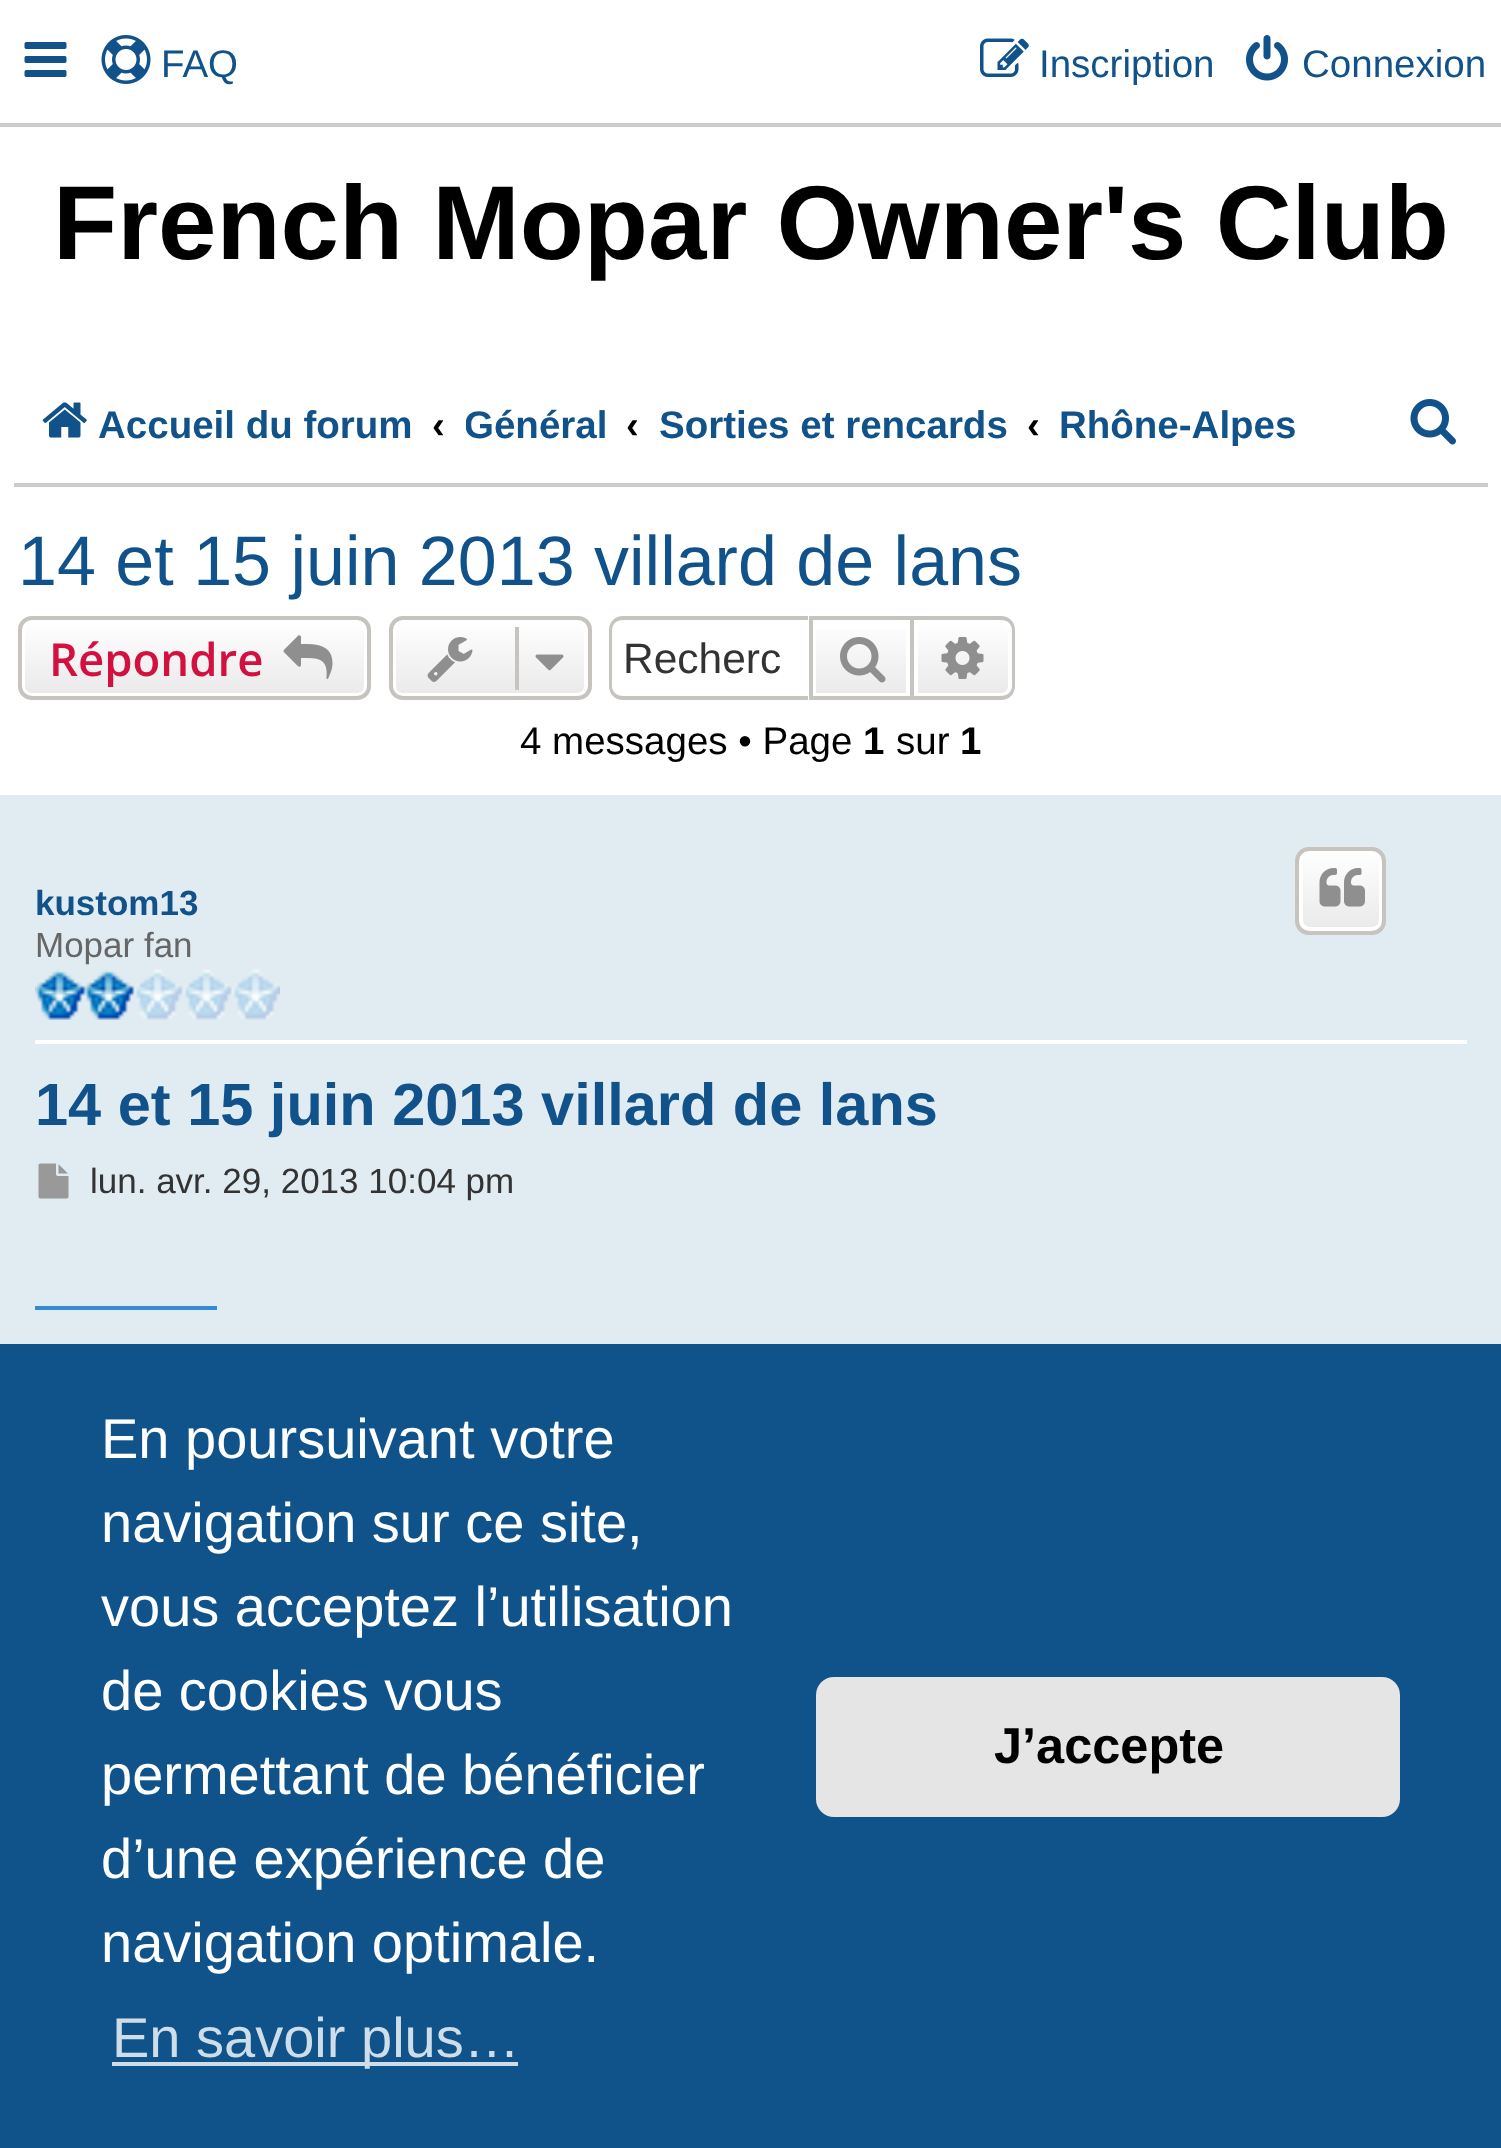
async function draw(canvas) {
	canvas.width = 1501;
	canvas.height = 2148;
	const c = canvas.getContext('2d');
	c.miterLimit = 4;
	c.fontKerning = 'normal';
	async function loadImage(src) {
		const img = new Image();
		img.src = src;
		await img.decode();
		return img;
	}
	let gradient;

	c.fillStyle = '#fff';
	c.fillRect(0, 0, 1501, 2148);
	c.fillStyle = '#ccc';
	c.fillRect(0, 123, 1501, 4);
	c.drawImage(await loadImage('img1.png'), 24, 42, 43, 35);
	c.drawImage(await loadImage('img2.png'), 101, 35, 50, 49);
	c.font = '38.5px Liberation Sans';
	c.fillStyle = '#105289';
	c.fillText('FAQ', 161, 77);
	c.drawImage(await loadImage('img3.png'), 980, 38, 49, 39);
	c.fillText('Inscription', 1039, 77);
	c.drawImage(await loadImage('img4.png'), 1246, 35, 42, 46);
	c.fillText('Connexion', 1302, 77);
	c.font = 'bold 105px Liberation Sans';
	c.fillStyle = '#000';
	c.fillText('French Mopar Owner\'s Club', 53, 259);
	c.fillStyle = '#ccc';
	c.fillRect(14, 483, 1474, 4);
	c.drawImage(await loadImage('img5.png'), 42, 402, 45, 36);
	c.font = 'bold 38.5px Liberation Sans';
	c.fillStyle = '#105289';
	c.fillText('Accueil du forum', 98, 438);
	c.fillStyle = '#000';
	c.fillText('‹', 432, 438);
	c.save();
	c.beginPath();
	c.rect(466, 382, 140, 84);
	c.clip();
	c.fillStyle = '#105289';
	c.fillText('Général', 464, 438);
	c.restore();
	c.fillText('‹', 626, 438);
	c.fillStyle = '#105289';
	c.fillText('Sorties et rencards', 659, 438);
	c.fillStyle = '#000';
	c.fillText('‹', 1027, 438);
	c.fillStyle = '#105289';
	c.fillText('Rhône-Alpes', 1059, 438);
	c.drawImage(await loadImage('img6.png'), 1410, 399, 46, 46);
	c.font = '70px Liberation Sans';
	c.fillText('14 et 15 juin 2013 villard de lans', 18, 585);
	c.save();
	c.beginPath();
	c.roundRect(18, 616, 353, 84, 14);
	c.clip();
	gradient = c.createLinearGradient(194, 620, 194, 697);
	gradient.addColorStop(0, '#fff');
	gradient.addColorStop(1, '#e9e9e9');
	c.fillStyle = gradient;
	c.fillRect(18, 620, 353, 77);
	c.restore();
	c.beginPath();
	c.roundRect(23, 622, 343, 73, 9);
	c.strokeStyle = '#fff';
	c.lineWidth = 4;
	c.stroke();
	c.beginPath();
	c.roundRect(20, 618, 349, 80, 12);
	c.strokeStyle = '#c7c3bf';
	c.stroke();
	c.font = '600 45.5px Open Sans';
	c.fillStyle = '#d31141';
	c.fillText('Répondre', 49, 676);
	c.drawImage(await loadImage('img7.png'), 283, 635, 50, 44);
	c.save();
	c.beginPath();
	c.roundRect(389, 616, 203, 84, 14);
	c.clip();
	gradient = c.createLinearGradient(490, 620, 490, 697);
	gradient.addColorStop(0, '#fff');
	gradient.addColorStop(1, '#e9e9e9');
	c.fillStyle = gradient;
	c.fillRect(389, 620, 203, 77);
	c.restore();
	c.beginPath();
	c.roundRect(394, 622, 192, 73, 9);
	c.strokeStyle = '#fff';
	c.stroke();
	c.beginPath();
	c.roundRect(391, 618, 199, 80, 12);
	c.strokeStyle = '#c7c3bf';
	c.stroke();
	c.drawImage(await loadImage('img8.png'), 427, 637, 46, 45);
	c.fillStyle = '#c7c3bf';
	c.fillRect(515, 627, 4, 63);
	c.drawImage(await loadImage('img9.png'), 535, 654, 29, 17);
	c.beginPath();
	c.moveTo(623, 616);
	c.lineTo(808, 616);
	c.lineTo(808, 700);
	c.lineTo(623, 700);
	c.bezierCurveTo(615, 700, 609, 694, 609, 686);
	c.lineTo(609, 630);
	c.bezierCurveTo(609, 622, 615, 616, 623, 616);
	c.closePath();
	c.moveTo(623, 620);
	c.lineTo(808, 620);
	c.lineTo(808, 696);
	c.lineTo(623, 696);
	c.bezierCurveTo(617, 696, 612, 692, 612, 686);
	c.lineTo(612, 630);
	c.bezierCurveTo(612, 624, 617, 620, 623, 620);
	c.closePath();
	c.fill('evenodd');
	c.font = '42.5px Liberation Sans';
	c.fillStyle = '#333';
	c.fillText('Recherc', 623, 673);
	gradient = c.createLinearGradient(861, 620, 861, 697);
	gradient.addColorStop(0, '#fff');
	gradient.addColorStop(1, '#e9e9e9');
	c.fillStyle = gradient;
	c.fillRect(816, 629, 90, 64);
	c.strokeRect(811, 618, 101, 80);
	c.drawImage(await loadImage('img10.png'), 840, 637, 46, 46);
	gradient = c.createLinearGradient(963, 620, 963, 697);
	gradient.addColorStop(0, '#fff');
	gradient.addColorStop(1, '#e9e9e9');
	c.fillStyle = gradient;
	c.beginPath();
	c.roundRect(916, 622, 94, 73, [0, 9, 9, 0]);
	c.fill();
	c.strokeStyle = '#fff';
	c.stroke();
	c.fillStyle = '#c7c3bf';
	c.beginPath();
	c.moveTo(914, 616);
	c.lineTo(1001, 616);
	c.bezierCurveTo(1009, 616, 1015, 622, 1015, 630);
	c.lineTo(1015, 686);
	c.bezierCurveTo(1015, 694, 1009, 700, 1001, 700);
	c.lineTo(914, 700);
	c.closePath();
	c.moveTo(914, 620);
	c.lineTo(1001, 620);
	c.bezierCurveTo(1007, 620, 1012, 624, 1012, 630);
	c.lineTo(1012, 686);
	c.bezierCurveTo(1012, 692, 1007, 696, 1001, 696);
	c.lineTo(914, 696);
	c.closePath();
	c.fill('evenodd');
	c.drawImage(await loadImage('img11.png'), 941, 637, 43, 42);
	c.font = '38.5px Liberation Sans';
	c.fillStyle = '#000';
	c.fillText('4 messages • Page', 520, 754);
	c.font = 'bold 38.5px Liberation Sans';
	c.fillText('1', 863, 754);
	c.font = '38.5px Liberation Sans';
	c.fillText('sur', 896, 754);
	c.font = 'bold 38.5px Liberation Sans';
	c.fillText('1', 960, 754);
	c.fillStyle = '#e1ebf2';
	c.fillRect(0, 795, 1501, 549);
	c.fillStyle = '#fff';
	c.fillRect(35, 1040, 1432, 4);
	c.font = 'bold 35px Liberation Sans';
	c.fillStyle = '#105289';
	c.fillText('kustom13', 35, 915);
	c.font = '35px Liberation Sans';
	c.fillStyle = '#666';
	c.fillText('Mopar fan', 35, 957);
	c.drawImage(await loadImage('img12.png'), 35, 969, 245, 51);
	c.save();
	c.beginPath();
	c.roundRect(1295, 847, 91, 88, 14);
	c.clip();
	gradient = c.createLinearGradient(1341, 851, 1341, 931);
	gradient.addColorStop(0, '#fff');
	gradient.addColorStop(1, '#e9e9e9');
	c.fillStyle = gradient;
	c.fillRect(1295, 851, 91, 80);
	c.restore();
	c.beginPath();
	c.roundRect(1301, 853, 80, 76, 9);
	c.stroke();
	c.beginPath();
	c.roundRect(1297, 849, 87, 84, 12);
	c.strokeStyle = '#c7c3bf';
	c.stroke();
	c.drawImage(await loadImage('img13.png'), 1319, 868, 46, 39);
	c.font = 'bold 59.5px Liberation Sans';
	c.fillStyle = '#105289';
	c.fillText('14 et 15 juin 2013 villard de lans', 35, 1125);
	c.drawImage(await loadImage('img14.png'), 38, 1163, 31, 36);
	c.font = '35px Liberation Sans';
	c.fillStyle = '#333';
	c.fillText('lun. avr. 29, 2013 10:04 pm', 90, 1193);
	c.fillStyle = '#368ad2';
	c.fillRect(35, 1306, 182, 4);
	c.fillStyle = '#0f538a';
	c.fillRect(0, 1344, 1501, 804);
	c.font = '56px Liberation Sans';
	c.fillStyle = '#fff';
	for (const [text, x, y] of [
		['En poursuivant votre', 101, 1458],
		['navigation sur ce site,', 101, 1542],
		['vous acceptez l’utilisation', 101, 1626],
		['de cookies vous', 101, 1710],
		['permettant de bénéficier', 101, 1794],
		['d’une expérience de', 101, 1878],
		['navigation optimale.', 101, 1962],
	]) {
		c.fillText(text, x, y);
	}
	c.fillStyle = '#cfdde8';
	c.fillRect(112, 2062, 406, 4);
	c.fillText('En savoir plus…', 112, 2057);
	c.fillStyle = '#e5e5e5';
	c.beginPath();
	c.roundRect(816, 1677, 584, 140, 18);
	c.fill();
	c.font = 'bold 50.5px Liberation Sans';
	c.fillStyle = '#000';
	c.fillText('J’accepte', 994, 1763);
}

draw(document.querySelector('canvas'));
